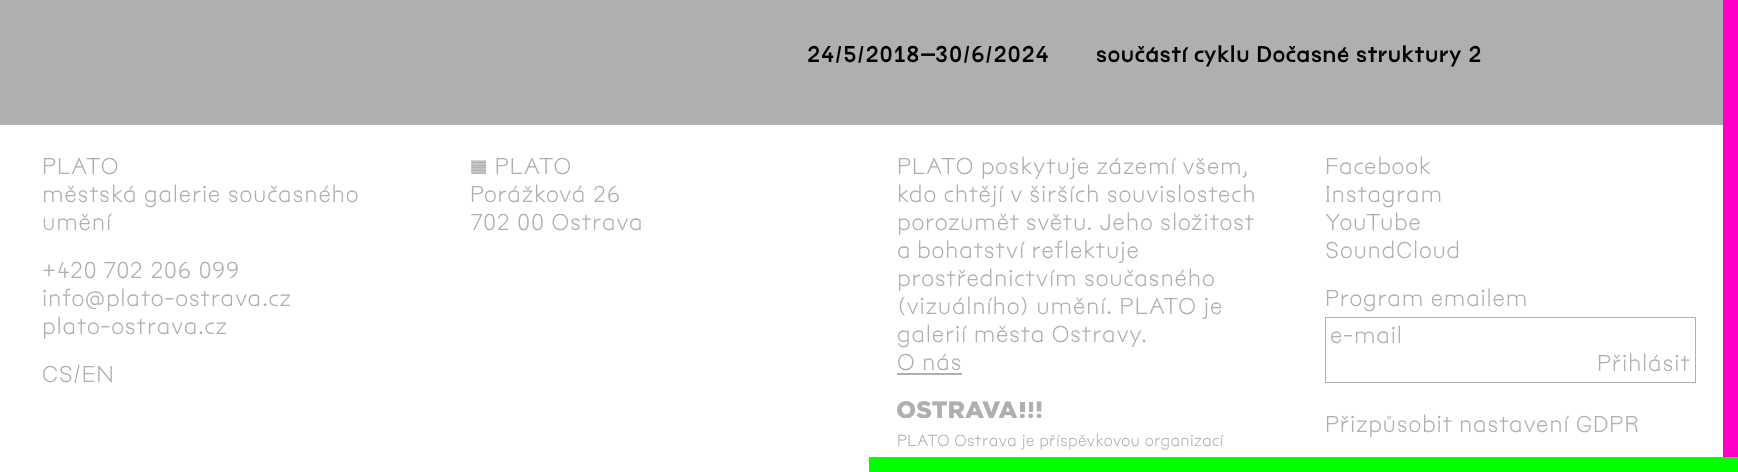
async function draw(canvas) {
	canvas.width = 1738;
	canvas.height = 472;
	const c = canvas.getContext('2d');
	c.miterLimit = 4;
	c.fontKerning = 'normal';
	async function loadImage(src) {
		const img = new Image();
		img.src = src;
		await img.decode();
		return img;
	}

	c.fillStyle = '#afafaf';
	c.fillRect(0, 0, 1738, 472);
	c.letterSpacing = '0.8px';
	c.font = '200 20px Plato';
	c.fillStyle = '#000';
	for (const [text, x, y] of [
		['24/5/2018–', 807, 62],
		['30/6/2024', 935, 62],
		['součástí cyklu Dočasné struktury 2', 1096, 62],
	]) {
		c.fillText(text, x, y);
	}
	for (const [x, y, w, h, color] of [
		[0, 125, 1723, 347, '#fff'],
		[869, 457, 869, 15, '#0f0'],
		[1723, 0, 15, 457, '#ff00c8'],
	]) {
		c.fillStyle = color;
		c.fillRect(x, y, w, h);
	}
	c.font = '20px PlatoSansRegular';
	c.fillStyle = '#afafaf';
	for (const [text, x, y] of [
		['PLATO', 42, 174],
		['městská galerie současného', 42, 202],
		['umění', 42, 230],
		['+420 702 206 099', 42, 278],
		['info@plato-ostrava.cz', 42, 306],
		['plato-ostrava.cz', 42, 334],
		['CS', 42, 382],
		['/EN', 73, 382],
		['◊ PLATO', 470, 174],
		['Porážková 26', 470, 202],
		['702 00 Ostrava', 470, 230],
		['PLATO poskytuje zázemí všem,', 897, 174],
		['kdo chtějí v širších souvislostech', 897, 202],
		['porozumět světu. Jeho složitost', 897, 230],
		['a bohatství reflektuje', 897, 258],
		['prostřednictvím současného', 897, 286],
		['(vizuálního) umění. PLATO je', 897, 314],
		['galerií města Ostravy.', 897, 342],
		['O nás', 897, 370],
	]) {
		c.fillText(text, x, y);
	}
	c.fillRect(897, 373, 65, 2);
	c.drawImage(await loadImage('img1.png'), 897, 401, 145, 17);
	c.letterSpacing = '0.35px';
	c.font = '14px PlatoSansRegular';
	c.fillText('PLATO Ostrava je příspěvkovou organizací', 897, 446);
	c.letterSpacing = '0.8px';
	c.font = '20px PlatoSansRegular';
	for (const [text, x, y] of [
		['Facebook', 1325, 174],
		['Instagram', 1325, 202],
		['YouTube', 1325, 230],
		['SoundCloud', 1325, 258],
		['Program emailem', 1325, 306],
	]) {
		c.fillText(text, x, y);
	}
	c.strokeStyle = '#afafaf';
	c.strokeRect(1325.5, 317.5, 370, 65);
	for (const [text, x, y] of [
		['e-mail', 1330, 343],
		['Přihlásit', 1597, 371],
		['Přizpůsobit nastavení GDPR', 1325, 432],
	]) {
		c.fillText(text, x, y);
	}
}

draw(document.querySelector('canvas'));
